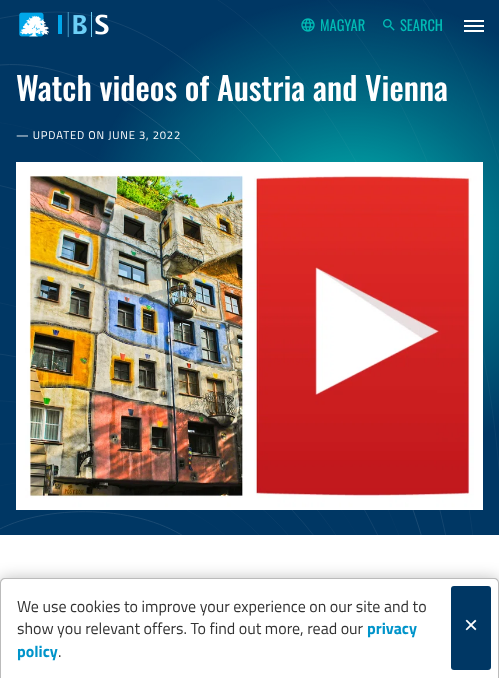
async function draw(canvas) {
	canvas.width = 499;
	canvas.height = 678;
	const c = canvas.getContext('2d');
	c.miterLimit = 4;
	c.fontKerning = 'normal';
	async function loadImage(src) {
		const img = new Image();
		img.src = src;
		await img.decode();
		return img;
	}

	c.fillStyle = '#fff';
	c.fillRect(0, 0, 499, 678);
	c.fillStyle = '#003764';
	c.fillRect(0, 0, 499, 535);
	c.drawImage(await loadImage('img1.png'), 0, 0, 499, 50);
	c.drawImage(await loadImage('img2.png'), 19, 12, 90, 26);
	c.drawImage(await loadImage('img3.png'), 301, 18, 14, 14);
	c.font = '14.5px Oswald';
	c.fillStyle = '#00bcb5';
	c.fillText('MAGYAR', 320, 31);
	c.drawImage(await loadImage('img4.png'), 383, 19, 12, 12);
	c.fillText('SEARCH', 400, 31);
	for (const [x, y, w, h, color] of [
		[464, 20, 20, 2, '#fff'],
		[464, 25, 20, 2, '#fff'],
		[464, 30, 20, 2, '#fff'],
	]) {
		c.fillStyle = color;
		c.fillRect(x, y, w, h);
	}
	c.drawImage(await loadImage('img5.png'), 0, 50, 499, 485);
	c.font = '500 32px Oswald';
	c.fillText('Watch videos of Austria and Vienna', 16, 101);
	c.letterSpacing = '0.8px';
	c.font = '11.25px Titillium Web';
	c.fillText('— UPDATED ON JUNE 3, 2022', 16, 139);
	c.drawImage(await loadImage('img6.png'), 16, 162, 467, 348);
	c.fillStyle = '#00000040';
	c.filter = 'blur(7.5px)';
	c.beginPath();
	c.roundRect(0, 578, 499, 100, 5);
	c.fill();
	c.filter = 'none';
	c.fillStyle = '#fff';
	c.beginPath();
	c.roundRect(0, 578, 499, 100, [5, 5, 0, 0]);
	c.fill();
	c.fillStyle = '#bbb';
	c.beginPath();
	c.moveTo(5, 578);
	c.lineTo(494, 578);
	c.bezierCurveTo(497, 578, 499, 580, 499, 583);
	c.lineTo(499, 678);
	c.lineTo(0, 678);
	c.lineTo(0, 583);
	c.bezierCurveTo(0, 580, 2, 578, 5, 578);
	c.closePath();
	c.moveTo(5, 579);
	c.lineTo(494, 579);
	c.bezierCurveTo(496, 579, 498, 581, 498, 583);
	c.lineTo(498, 678);
	c.lineTo(1, 678);
	c.lineTo(1, 583);
	c.bezierCurveTo(1, 581, 3, 579, 5, 579);
	c.closePath();
	c.fill('evenodd');
	c.letterSpacing = '0px';
	c.font = '16px Titillium Web';
	c.fillStyle = '#333';
	c.fillText('We use cookies to improve your experience on our site and to', 17, 612);
	c.fillText('show you relevant offers. To find out more, read our', 17, 634);
	c.font = 'bold 16px Titillium Web';
	c.fillStyle = '#0094ca';
	c.fillText('privacy', 367, 634);
	c.fillText('policy', 17, 657);
	c.font = '16px Titillium Web';
	c.fillStyle = '#333';
	c.fillText('.', 58, 657);
	c.fillStyle = '#003764';
	c.beginPath();
	c.roundRect(451, 586, 40, 84, 3);
	c.fill();
	c.font = '24px Liberation Sans';
	c.fillStyle = '#fff';
	c.fillText('×', 464, 633);
}

draw(document.querySelector('canvas'));
